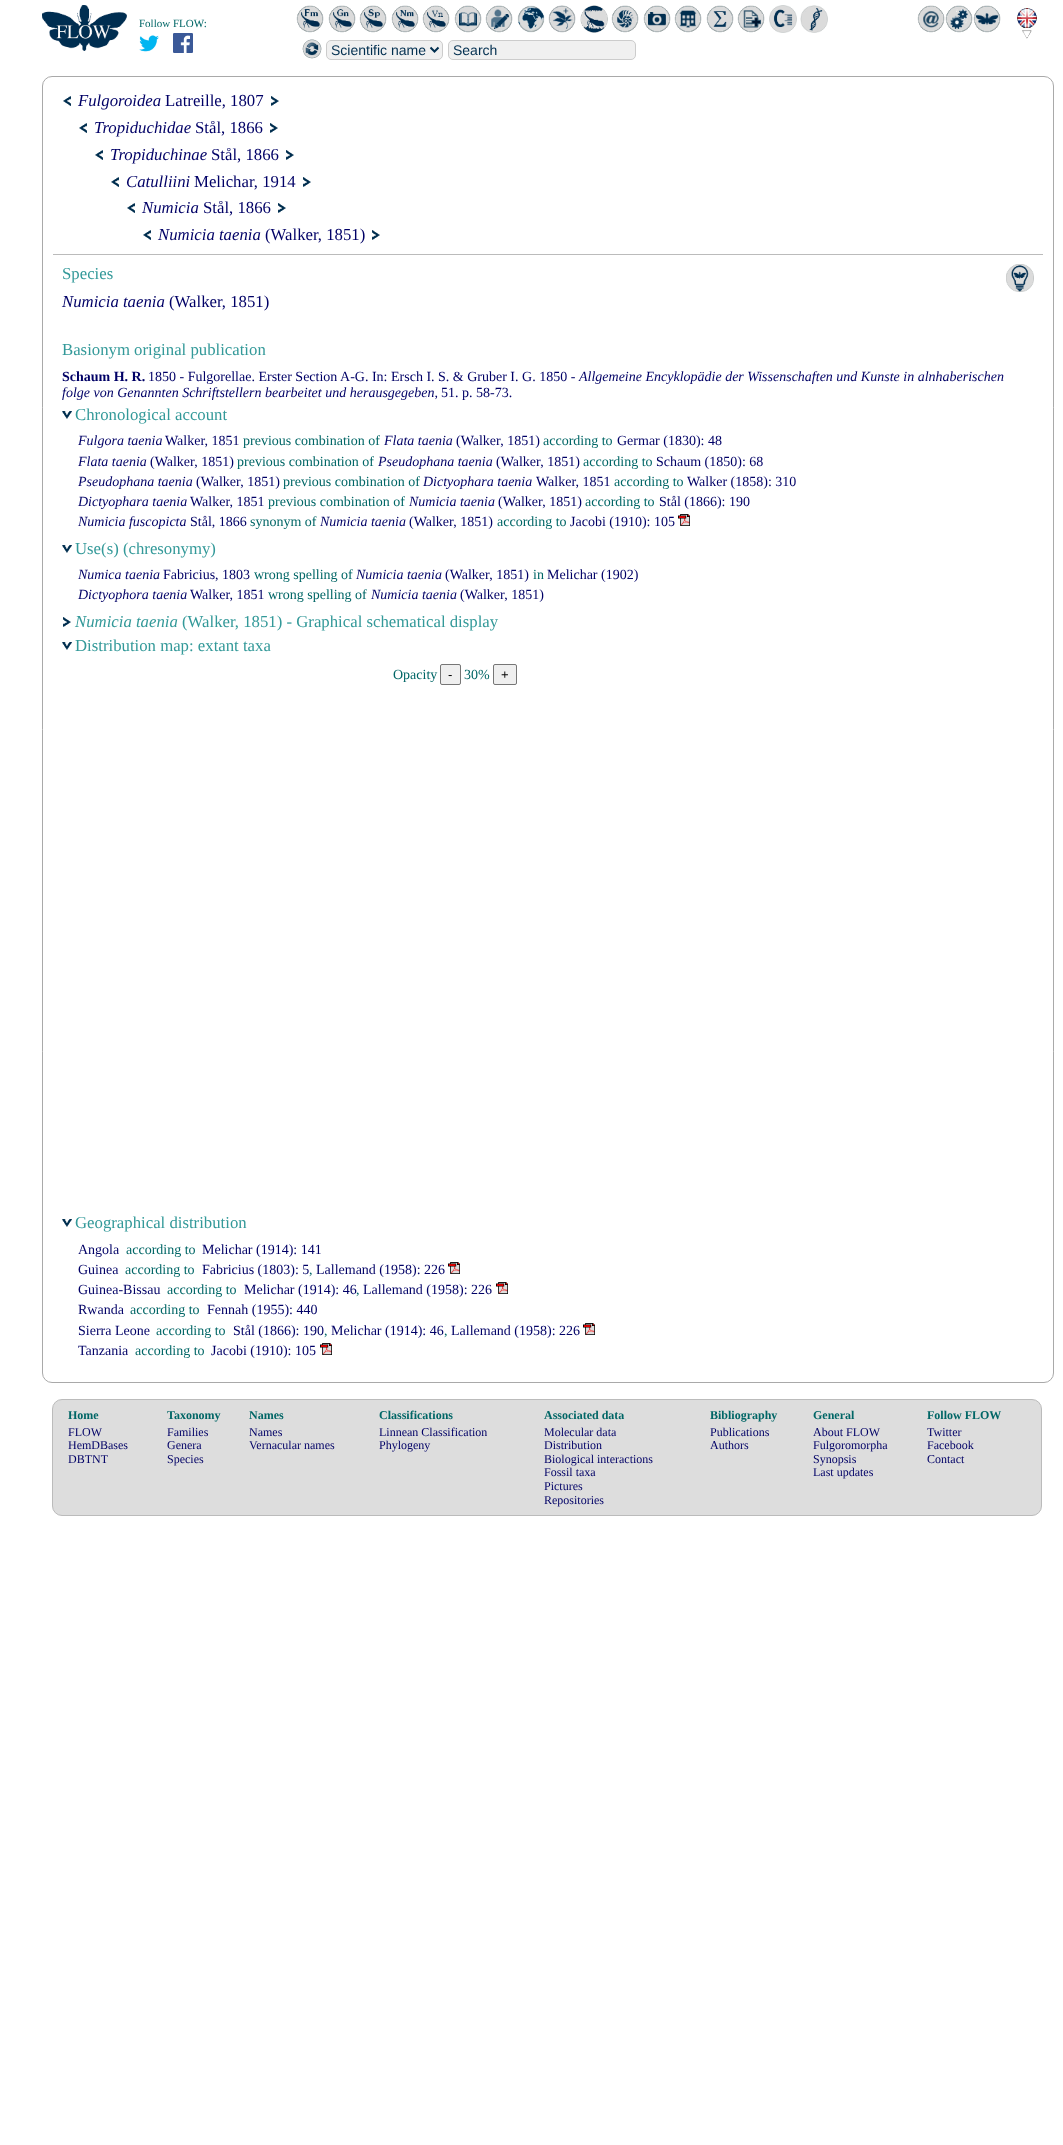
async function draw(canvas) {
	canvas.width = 1063;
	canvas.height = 2145;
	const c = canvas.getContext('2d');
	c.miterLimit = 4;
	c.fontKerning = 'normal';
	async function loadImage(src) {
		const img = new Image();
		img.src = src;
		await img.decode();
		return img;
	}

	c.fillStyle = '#fff';
	c.fillRect(0, 0, 1063, 2145);
	c.drawImage(await loadImage('img1.png'), 42, 5, 85, 46);
	c.font = '11px Liberation Serif';
	c.fillStyle = '#066';
	c.fillText('Follow FLOW:', 139, 27);
	c.drawImage(await loadImage('img2.png'), 139, 35, 20, 17);
	c.drawImage(await loadImage('img3.png'), 173, 33, 20, 20);
	c.drawImage(await loadImage('img4.png'), 296, 5, 28, 28);
	c.drawImage(await loadImage('img5.png'), 328, 5, 28, 28);
	c.drawImage(await loadImage('img6.png'), 359, 5, 28, 28);
	c.drawImage(await loadImage('img7.png'), 391, 5, 28, 28);
	c.drawImage(await loadImage('img8.png'), 422, 5, 28, 28);
	c.drawImage(await loadImage('img9.png'), 454, 5, 28, 28);
	c.drawImage(await loadImage('img10.png'), 485, 5, 28, 28);
	c.drawImage(await loadImage('img11.png'), 517, 5, 28, 28);
	c.drawImage(await loadImage('img12.png'), 548, 5, 28, 28);
	c.drawImage(await loadImage('img13.png'), 580, 5, 28, 28);
	c.drawImage(await loadImage('img14.png'), 611, 5, 28, 28);
	c.drawImage(await loadImage('img15.png'), 643, 5, 28, 28);
	c.drawImage(await loadImage('img16.png'), 674, 5, 28, 28);
	c.drawImage(await loadImage('img17.png'), 706, 5, 28, 28);
	c.drawImage(await loadImage('img18.png'), 737, 5, 28, 28);
	c.drawImage(await loadImage('img19.png'), 769, 5, 28, 28);
	c.drawImage(await loadImage('img20.png'), 800, 5, 28, 28);
	c.drawImage(await loadImage('img21.png'), 917, 5, 28, 28);
	c.drawImage(await loadImage('img22.png'), 945, 5, 28, 28);
	c.drawImage(await loadImage('img23.png'), 973, 5, 28, 28);
	c.drawImage(await loadImage('img24.png'), 1017, 8, 20, 20);
	c.drawImage(await loadImage('img25.png'), 1022, 30, 10, 9);
	c.drawImage(await loadImage('img26.png'), 302, 39, 20, 20);
	c.fillStyle = '#f0f0f0';
	c.beginPath();
	c.roundRect(326.5, 40.5, 116, 19, 4.5);
	c.fill();
	c.strokeStyle = '#ccc';
	c.stroke();
	c.beginPath();
	c.moveTo(430.5, 47.5);
	c.lineTo(434.5, 51.5);
	c.lineTo(438.5, 47.5);
	c.strokeStyle = '#002e4f';
	c.lineWidth = 2;
	c.stroke();
	c.font = '14px Liberation Sans';
	c.fillStyle = '#002e4f';
	c.fillText('Scientific name', 331, 55);
	c.fillStyle = '#f0f0f0';
	c.beginPath();
	c.roundRect(448.5, 40.5, 187, 19, 4.5);
	c.fill();
	c.strokeStyle = '#ccc';
	c.lineWidth = 1;
	c.stroke();
	c.fillStyle = '#002e4f';
	c.fillText('Search', 453, 55);
	c.beginPath();
	c.roundRect(42.5, 76.5, 1011, 1306, 9.5);
	c.strokeStyle = '#a9a9a9';
	c.stroke();
	c.drawImage(await loadImage('img27.png'), 63, 96, 8, 10);
	c.font = 'italic 16.75px Liberation Serif';
	c.fillStyle = '#006';
	c.fillText('Fulgoroidea', 78, 106);
	c.font = '16.75px Liberation Serif';
	c.fillText('Latreille, 1807', 165, 106);
	c.drawImage(await loadImage('img28.png'), 271, 96, 8, 10);
	c.drawImage(await loadImage('img27.png'), 79, 123, 8, 10);
	c.font = 'italic 16.75px Liberation Serif';
	c.fillText('Tropiduchidae', 94, 133);
	c.font = '16.75px Liberation Serif';
	c.fillText('Stål, 1866', 195, 133);
	c.drawImage(await loadImage('img28.png'), 270, 123, 8, 10);
	c.drawImage(await loadImage('img27.png'), 95, 150, 8, 10);
	c.font = 'italic 16.75px Liberation Serif';
	c.fillText('Tropiduchinae', 110, 160);
	c.font = '16.75px Liberation Serif';
	c.fillText('Stål, 1866', 211, 160);
	c.drawImage(await loadImage('img28.png'), 286, 150, 8, 10);
	c.drawImage(await loadImage('img27.png'), 111, 177, 8, 10);
	c.font = 'italic 16.75px Liberation Serif';
	c.fillText('Catulliini', 126, 187);
	c.font = '16.75px Liberation Serif';
	c.fillText('Melichar, 1914', 194, 187);
	c.drawImage(await loadImage('img28.png'), 303, 177, 8, 10);
	c.drawImage(await loadImage('img27.png'), 127, 203, 8, 10);
	c.font = 'italic 16.75px Liberation Serif';
	c.fillText('Numicia', 142, 213);
	c.font = '16.75px Liberation Serif';
	c.fillText('Stål, 1866', 203, 213);
	c.drawImage(await loadImage('img28.png'), 278, 203, 8, 10);
	c.drawImage(await loadImage('img27.png'), 143, 230, 8, 10);
	c.font = 'italic 16.75px Liberation Serif';
	c.fillText('Numicia taenia', 158, 240);
	c.font = '16.75px Liberation Serif';
	c.fillText('(Walker, 1851)', 265, 240);
	c.drawImage(await loadImage('img28.png'), 372, 230, 8, 10);
	c.fillStyle = '#bbb';
	c.fillRect(53, 254, 990, 1);
	c.fillStyle = '#399';
	c.fillText('Species', 62, 279);
	c.drawImage(await loadImage('img29.png'), 1006, 264, 28, 28);
	c.font = 'italic 16.75px Liberation Serif';
	c.fillStyle = '#006';
	c.fillText('Numicia taenia', 62, 307);
	c.font = '16.75px Liberation Serif';
	c.fillText('(Walker, 1851)', 169, 307);
	c.fillStyle = '#399';
	c.fillText('Basionym original publication', 62, 355);
	c.font = 'bold 14px Liberation Serif';
	c.fillStyle = '#006';
	c.fillText('Schaum H. R.', 62, 381);
	c.font = '14px Liberation Serif';
	c.fillText('1850 - Fulgorellae. Erster Section A-G. In: Ersch I. S. & Gruber I. G. 1850 -', 148, 381);
	c.font = 'italic 14px Liberation Serif';
	c.fillText('Allgemeine Encyklopädie der Wissenschaften und Kunste in alnhaberischen', 579, 381);
	c.fillText('folge von Genannten Schriftstellern bearbeitet und herausgegeben,', 62, 397);
	c.font = '14px Liberation Serif';
	c.fillText('51. p. 58-73.', 441, 397);
	c.drawImage(await loadImage('img30.png'), 62, 411, 10, 8);
	c.font = '16.75px Liberation Serif';
	c.fillStyle = '#399';
	c.fillText('Chronological account', 75, 420);
	c.font = 'italic 14px Liberation Serif';
	c.fillStyle = '#006';
	c.fillText('Fulgora taenia', 78, 445);
	c.font = '14px Liberation Serif';
	c.fillText('Walker, 1851', 165, 445);
	c.fillStyle = '#066';
	c.fillText('previous combination of', 243, 445);
	c.font = 'italic 14px Liberation Serif';
	c.fillStyle = '#006';
	c.fillText('Flata taenia', 384, 445);
	c.font = '14px Liberation Serif';
	c.fillText('(Walker, 1851)', 456, 445);
	c.fillStyle = '#066';
	c.fillText('according to', 543, 445);
	c.fillStyle = '#006';
	c.fillText('Germar (1830): 48', 617, 445);
	c.font = 'italic 14px Liberation Serif';
	c.fillText('Flata taenia', 78, 466);
	c.font = '14px Liberation Serif';
	c.fillText('(Walker, 1851)', 150, 466);
	c.fillStyle = '#066';
	c.fillText('previous combination of', 237, 466);
	c.font = 'italic 14px Liberation Serif';
	c.fillStyle = '#006';
	c.fillText('Pseudophana taenia', 378, 466);
	c.font = '14px Liberation Serif';
	c.fillText('(Walker, 1851)', 496, 466);
	c.fillStyle = '#066';
	c.fillText('according to', 583, 466);
	c.fillStyle = '#006';
	c.fillText('Schaum (1850): 68', 656, 466);
	c.font = 'italic 14px Liberation Serif';
	c.fillText('Pseudophana taenia', 78, 486);
	c.font = '14px Liberation Serif';
	c.fillText('(Walker, 1851)', 196, 486);
	c.fillStyle = '#066';
	c.fillText('previous combination of', 283, 486);
	c.font = 'italic 14px Liberation Serif';
	c.fillStyle = '#006';
	c.fillText('Dictyophara taenia', 423, 486);
	c.font = '14px Liberation Serif';
	c.fillText('Walker, 1851', 536, 486);
	c.fillStyle = '#066';
	c.fillText('according to', 614, 486);
	c.fillStyle = '#006';
	c.fillText('Walker (1858): 310', 687, 486);
	c.font = 'italic 14px Liberation Serif';
	c.fillText('Dictyophara taenia', 78, 506);
	c.font = '14px Liberation Serif';
	c.fillText('Walker, 1851', 190, 506);
	c.fillStyle = '#066';
	c.fillText('previous combination of', 268, 506);
	c.font = 'italic 14px Liberation Serif';
	c.fillStyle = '#006';
	c.fillText('Numicia taenia', 409, 506);
	c.font = '14px Liberation Serif';
	c.fillText('(Walker, 1851)', 498, 506);
	c.fillStyle = '#066';
	c.fillText('according to', 585, 506);
	c.fillStyle = '#006';
	c.fillText('Stål (1866): 190', 659, 506);
	c.font = 'italic 14px Liberation Serif';
	c.fillText('Numicia fuscopicta', 78, 526);
	c.font = '14px Liberation Serif';
	c.fillText('Stål, 1866', 190, 526);
	c.fillStyle = '#066';
	c.fillText('synonym of', 250, 526);
	c.font = 'italic 14px Liberation Serif';
	c.fillStyle = '#006';
	c.fillText('Numicia taenia', 320, 526);
	c.font = '14px Liberation Serif';
	c.fillText('(Walker, 1851)', 409, 526);
	c.fillStyle = '#066';
	c.fillText('according to', 497, 526);
	c.fillStyle = '#006';
	c.fillText('Jacobi (1910): 105', 570, 526);
	c.drawImage(await loadImage('img31.png'), 678, 514, 12, 12);
	c.drawImage(await loadImage('img30.png'), 62, 545, 10, 8);
	c.font = '16.75px Liberation Serif';
	c.fillStyle = '#399';
	c.fillText('Use(s) (chresonymy)', 75, 554);
	c.font = 'italic 14px Liberation Serif';
	c.fillStyle = '#006';
	c.fillText('Numica taenia', 78, 579);
	c.font = '14px Liberation Serif';
	c.fillText('Fabricius, 1803', 163, 579);
	c.fillStyle = '#066';
	c.fillText('wrong spelling of', 254, 579);
	c.font = 'italic 14px Liberation Serif';
	c.fillStyle = '#006';
	c.fillText('Numicia taenia', 356, 579);
	c.font = '14px Liberation Serif';
	c.fillText('(Walker, 1851)', 445, 579);
	c.fillStyle = '#066';
	c.fillText('in', 533, 579);
	c.fillStyle = '#006';
	c.fillText('Melichar (1902)', 547, 579);
	c.font = 'italic 14px Liberation Serif';
	c.fillText('Dictyophora taenia', 78, 599);
	c.font = '14px Liberation Serif';
	c.fillText('Walker, 1851', 190, 599);
	c.fillStyle = '#066';
	c.fillText('wrong spelling of', 268, 599);
	c.font = 'italic 14px Liberation Serif';
	c.fillStyle = '#006';
	c.fillText('Numicia taenia', 371, 599);
	c.font = '14px Liberation Serif';
	c.fillText('(Walker, 1851)', 460, 599);
	c.drawImage(await loadImage('img28.png'), 63, 617, 8, 10);
	c.font = 'italic 16.75px Liberation Serif';
	c.fillStyle = '#399';
	c.fillText('Numicia taenia', 75, 627);
	c.font = '16.75px Liberation Serif';
	c.fillText('(Walker, 1851) - Graphical schematical display', 182, 627);
	c.drawImage(await loadImage('img30.png'), 62, 642, 10, 8);
	c.fillText('Distribution map: extant taxa', 75, 651);
	c.font = '14px Liberation Serif';
	c.fillStyle = '#066';
	c.fillText('Opacity', 393, 679);
	c.fillStyle = '#efefef';
	c.beginPath();
	c.roundRect(440.5, 664.5, 20, 20, 1.5);
	c.fill();
	c.strokeStyle = '#767676';
	c.stroke();
	c.font = '13px Liberation Sans';
	c.fillStyle = '#000';
	c.fillText('-', 448, 679);
	c.font = '14px Liberation Serif';
	c.fillStyle = '#066';
	c.fillText('30%', 464, 679);
	c.fillStyle = '#efefef';
	c.beginPath();
	c.roundRect(493.5, 664.5, 23, 20, 1.5);
	c.fill();
	c.stroke();
	c.font = '13px Liberation Sans';
	c.fillStyle = '#000';
	c.fillText('+', 501, 679);
	c.drawImage(await loadImage('img30.png'), 62, 1219, 10, 8);
	c.font = '16.75px Liberation Serif';
	c.fillStyle = '#399';
	c.fillText('Geographical distribution', 75, 1228);
	c.font = '14px Liberation Serif';
	c.fillStyle = '#006';
	c.fillText('Angola', 78, 1254);
	c.fillStyle = '#066';
	c.fillText('according to', 126, 1254);
	c.fillStyle = '#006';
	c.fillText('Melichar (1914): 141', 202, 1254);
	c.fillText('Guinea', 78, 1274);
	c.fillStyle = '#066';
	c.fillText('according to', 125, 1274);
	c.fillStyle = '#006';
	c.fillText('Fabricius (1803): 5', 202, 1274);
	c.fillStyle = '#066';
	c.fillText(',', 309, 1274);
	c.fillStyle = '#006';
	c.fillText('Lallemand (1958): 226', 316, 1274);
	c.drawImage(await loadImage('img32.png'), 448, 1262, 12, 12);
	c.fillText('Guinea-Bissau', 78, 1294);
	c.fillStyle = '#066';
	c.fillText('according to', 167, 1294);
	c.fillStyle = '#006';
	c.fillText('Melichar (1914): 46', 244, 1294);
	c.fillStyle = '#066';
	c.fillText(',', 356, 1294);
	c.fillStyle = '#006';
	c.fillText('Lallemand (1958): 226', 363, 1294);
	c.drawImage(await loadImage('img32.png'), 496, 1282, 12, 12);
	c.fillText('Rwanda', 78, 1314);
	c.fillStyle = '#066';
	c.fillText('according to', 130, 1314);
	c.fillStyle = '#006';
	c.fillText('Fennah (1955): 440', 207, 1314);
	c.fillText('Sierra Leone', 78, 1335);
	c.fillStyle = '#066';
	c.fillText('according to', 156, 1335);
	c.fillStyle = '#006';
	c.fillText('Stål (1866): 190', 233, 1335);
	c.fillStyle = '#066';
	c.fillText(',', 324, 1335);
	c.fillStyle = '#006';
	c.fillText('Melichar (1914): 46', 331, 1335);
	c.fillStyle = '#066';
	c.fillText(',', 444, 1335);
	c.fillStyle = '#006';
	c.fillText('Lallemand (1958): 226', 451, 1335);
	c.drawImage(await loadImage('img31.png'), 583, 1323, 12, 12);
	c.fillText('Tanzania', 78, 1355);
	c.fillStyle = '#066';
	c.fillText('according to', 135, 1355);
	c.fillStyle = '#006';
	c.fillText('Jacobi (1910): 105', 211, 1355);
	c.drawImage(await loadImage('img31.png'), 320, 1343, 12, 12);
	c.fillStyle = '#ddd';
	c.beginPath();
	c.roundRect(52.5, 1399.5, 989, 116, 9.5);
	c.fill();
	c.strokeStyle = '#bbb';
	c.stroke();
	c.font = 'bold 12px Liberation Serif';
	c.fillStyle = '#066';
	c.fillText('Home', 68, 1419);
	c.font = '12px Liberation Serif';
	c.fillStyle = '#006';
	for (const [text, x, y] of [
		['FLOW', 68, 1436],
		['HemDBases', 68, 1449],
		['DBTNT', 68, 1463],
	]) {
		c.fillText(text, x, y);
	}
	c.font = 'bold 12px Liberation Serif';
	c.fillStyle = '#066';
	c.fillText('Taxonomy', 167, 1419);
	c.font = '12px Liberation Serif';
	c.fillStyle = '#006';
	for (const [text, x, y] of [
		['Families', 167, 1436],
		['Genera', 167, 1449],
		['Species', 167, 1463],
	]) {
		c.fillText(text, x, y);
	}
	c.font = 'bold 12px Liberation Serif';
	c.fillStyle = '#066';
	c.fillText('Names', 249, 1419);
	c.font = '12px Liberation Serif';
	c.fillStyle = '#006';
	c.fillText('Names', 249, 1436);
	c.fillText('Vernacular names', 249, 1449);
	c.font = 'bold 12px Liberation Serif';
	c.fillStyle = '#066';
	c.fillText('Classifications', 379, 1419);
	c.font = '12px Liberation Serif';
	c.fillStyle = '#006';
	c.fillText('Linnean Classification', 379, 1436);
	c.fillText('Phylogeny', 379, 1449);
	c.font = 'bold 12px Liberation Serif';
	c.fillStyle = '#066';
	c.fillText('Associated data', 544, 1419);
	c.font = '12px Liberation Serif';
	c.fillStyle = '#006';
	for (const [text, x, y] of [
		['Molecular data', 544, 1436],
		['Distribution', 544, 1449],
		['Biological interactions', 544, 1463],
		['Fossil taxa', 544, 1476],
		['Pictures', 544, 1490],
		['Repositories', 544, 1504],
	]) {
		c.fillText(text, x, y);
	}
	c.font = 'bold 12px Liberation Serif';
	c.fillStyle = '#066';
	c.fillText('Bibliography', 710, 1419);
	c.font = '12px Liberation Serif';
	c.fillStyle = '#006';
	c.fillText('Publications', 710, 1436);
	c.fillText('Authors', 710, 1449);
	c.font = 'bold 12px Liberation Serif';
	c.fillStyle = '#066';
	c.fillText('General', 813, 1419);
	c.font = '12px Liberation Serif';
	c.fillStyle = '#006';
	for (const [text, x, y] of [
		['About FLOW', 813, 1436],
		['Fulgoromorpha', 813, 1449],
		['Synopsis', 813, 1463],
		['Last updates', 813, 1476],
	]) {
		c.fillText(text, x, y);
	}
	c.font = 'bold 12px Liberation Serif';
	c.fillStyle = '#066';
	c.fillText('Follow FLOW', 927, 1419);
	c.font = '12px Liberation Serif';
	c.fillStyle = '#006';
	for (const [text, x, y] of [
		['Twitter', 927, 1436],
		['Facebook', 927, 1449],
		['Contact', 927, 1463],
	]) {
		c.fillText(text, x, y);
	}
}

draw(document.querySelector('canvas'));
